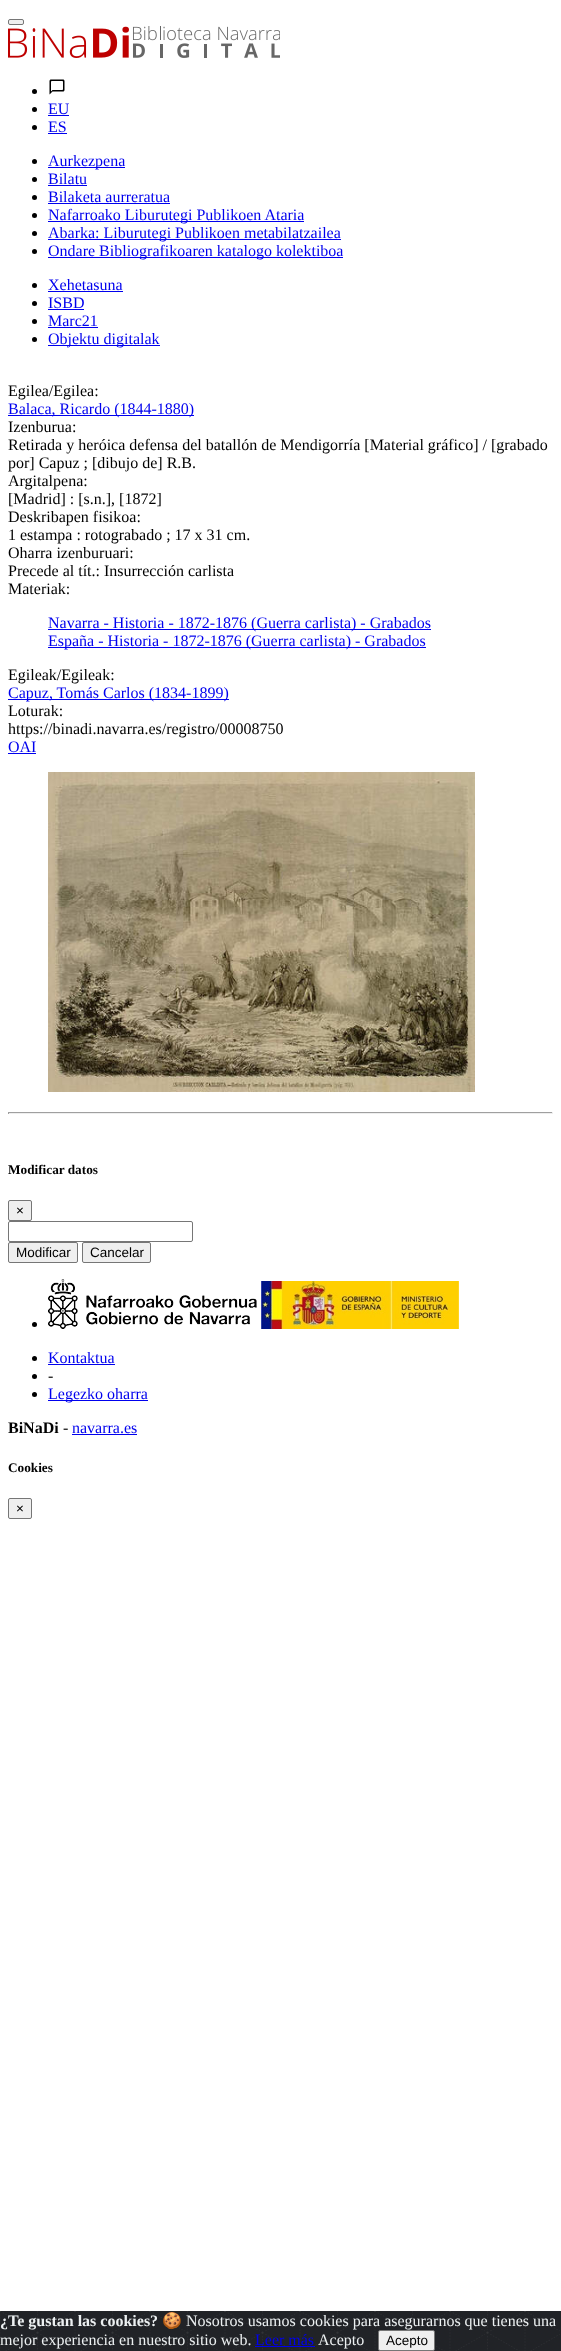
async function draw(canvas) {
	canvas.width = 561;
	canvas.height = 2351;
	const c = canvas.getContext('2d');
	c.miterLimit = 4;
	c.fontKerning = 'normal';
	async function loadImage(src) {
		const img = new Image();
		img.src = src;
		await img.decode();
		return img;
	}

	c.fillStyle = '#fff';
	c.fillRect(0, 0, 561, 2351);
	c.fillStyle = '#efefef';
	c.beginPath();
	c.roundRect(8.5, 19.5, 15, 5, 1.5);
	c.fill();
	c.strokeStyle = '#767676';
	c.stroke();
	c.drawImage(await loadImage('img1.png'), 8, 26, 272, 32);
	c.fillStyle = '#000';
	c.beginPath();
	c.arc(34.5, 91.5, 2.5, 0, 2 * Math.PI);
	c.fill();
	c.drawImage(await loadImage('img2.png'), 49, 79, 16, 16);
	c.beginPath();
	c.arc(34.5, 109.5, 2.5, 0, 2 * Math.PI);
	c.fill();
	c.font = '16px Liberation Serif';
	c.fillStyle = '#00e';
	c.fillText('EU', 48, 114);
	c.fillRect(48, 115, 21, 1);
	c.fillStyle = '#000';
	c.beginPath();
	c.arc(34.5, 127.5, 2.5, 0, 2 * Math.PI);
	c.fill();
	c.fillStyle = '#00e';
	c.fillText('ES', 48, 132);
	c.fillRect(48, 133, 19, 1);
	c.fillStyle = '#000';
	c.beginPath();
	c.arc(34.5, 161.5, 2.5, 0, 2 * Math.PI);
	c.fill();
	c.fillStyle = '#00e';
	c.fillRect(48, 167, 77, 1);
	c.fillText('Aurkezpena', 48, 166);
	c.fillStyle = '#000';
	c.beginPath();
	c.arc(34.5, 179.5, 2.5, 0, 2 * Math.PI);
	c.fill();
	c.fillStyle = '#00e';
	c.fillText('Bilatu', 48, 184);
	c.fillRect(48, 185, 39, 1);
	c.fillStyle = '#000';
	c.beginPath();
	c.arc(34.5, 197.5, 2.5, 0, 2 * Math.PI);
	c.fill();
	c.fillStyle = '#00e';
	c.fillText('Bilaketa aurreratua', 48, 202);
	c.fillRect(48, 203, 122, 1);
	c.fillStyle = '#000';
	c.beginPath();
	c.arc(34.5, 215.5, 2.5, 0, 2 * Math.PI);
	c.fill();
	c.fillStyle = '#00e';
	c.fillRect(48, 221, 256, 1);
	c.fillText('Nafarroako Liburutegi Publikoen Ataria', 48, 220);
	c.fillStyle = '#000';
	c.beginPath();
	c.arc(34.5, 233.5, 2.5, 0, 2 * Math.PI);
	c.fill();
	c.fillStyle = '#00e';
	c.fillRect(48, 239, 293, 1);
	c.fillText('Abarka: Liburutegi Publikoen metabilatzailea', 48, 238);
	c.fillStyle = '#000';
	c.beginPath();
	c.arc(34.5, 251.5, 2.5, 0, 2 * Math.PI);
	c.fill();
	c.fillStyle = '#00e';
	c.fillRect(48, 257, 295, 1);
	c.fillText('Ondare Bibliografikoaren katalogo kolektiboa', 48, 256);
	c.fillStyle = '#000';
	c.beginPath();
	c.arc(34.5, 285.5, 2.5, 0, 2 * Math.PI);
	c.fill();
	c.fillStyle = '#00e';
	c.fillText('Xehetasuna', 48, 290);
	c.fillRect(48, 291, 75, 1);
	c.fillStyle = '#000';
	c.beginPath();
	c.arc(34.5, 303.5, 2.5, 0, 2 * Math.PI);
	c.fill();
	c.fillStyle = '#00e';
	c.fillText('ISBD', 48, 308);
	c.fillRect(48, 309, 36, 1);
	c.fillStyle = '#000';
	c.beginPath();
	c.arc(34.5, 321.5, 2.5, 0, 2 * Math.PI);
	c.fill();
	c.fillStyle = '#00e';
	c.fillText('Marc21', 48, 326);
	c.fillRect(48, 327, 50, 1);
	c.fillStyle = '#000';
	c.beginPath();
	c.arc(34.5, 339.5, 2.5, 0, 2 * Math.PI);
	c.fill();
	c.fillStyle = '#00e';
	c.fillRect(48, 345, 112, 1);
	c.fillText('Objektu digitalak', 48, 344);
	c.fillStyle = '#000';
	c.fillText('Egilea/Egilea:', 8, 396);
	c.fillStyle = '#00e';
	c.fillRect(8, 415, 186, 1);
	c.fillText('Balaca, Ricardo (1844-1880)', 8, 414);
	c.fillStyle = '#000';
	for (const [text, x, y] of [
		['Izenburua:', 8, 432],
		['Retirada y heróica defensa del batallón de Mendigorría [Material gráfico] / [grabado', 8, 450],
		['por] Capuz ; [dibujo de] R.B.', 8, 468],
		['Argitalpena:', 8, 486],
		['[Madrid] : [s.n.], [1872]', 8, 504],
		['Deskribapen fisikoa:', 8, 522],
		['1 estampa : rotograbado ; 17 x 31 cm.', 8, 540],
		['Oharra izenburuari:', 8, 558],
		['Precede al tít.: Insurrección carlista', 8, 576],
		['Materiak:', 8, 594],
	]) {
		c.fillText(text, x, y);
	}
	c.fillStyle = '#00e';
	c.fillRect(48, 629, 383, 1);
	c.fillText('Navarra - Historia - 1872-1876 (Guerra carlista) - Grabados', 48, 628);
	c.fillRect(48, 647, 378, 1);
	c.fillText('España - Historia - 1872-1876 (Guerra carlista) - Grabados', 48, 646);
	c.fillStyle = '#000';
	c.fillText('Egileak/Egileak:', 8, 680);
	c.fillStyle = '#00e';
	c.fillRect(8, 699, 221, 1);
	c.fillText('Capuz, Tomás Carlos (1834-1899)', 8, 698);
	c.fillStyle = '#000';
	c.fillText('Loturak:', 8, 716);
	c.fillText('https://binadi.navarra.es/registro/00008750', 8, 734);
	c.fillStyle = '#00e';
	c.fillText('OAI', 8, 752);
	c.fillRect(8, 753, 28, 1);
	c.drawImage(await loadImage('img3.png'), 48, 772, 427, 320);
	for (const [x, y, w, h, color] of [
		[8, 1112, 545, 1, '#9f9f9f'],
		[552, 1112, 1, 2, '#eee'],
		[8, 1113, 545, 1, '#eee'],
		[8, 1112, 1, 2, '#9f9f9f'],
	]) {
		c.fillStyle = color;
		c.fillRect(x, y, w, h);
	}
	c.font = 'bold 13.25px Liberation Serif';
	c.fillStyle = '#000';
	c.fillText('Modificar datos', 8, 1174);
	c.fillStyle = '#efefef';
	c.beginPath();
	c.roundRect(8.5, 1200.5, 23, 20, 1.5);
	c.fill();
	c.stroke();
	c.font = '13.5px Liberation Sans';
	c.fillStyle = '#000';
	c.fillText('×', 16, 1215);
	c.beginPath();
	c.roundRect(8.5, 1221.5, 184, 20, 1.5);
	c.stroke();
	c.fillStyle = '#efefef';
	c.beginPath();
	c.roundRect(8.5, 1242.5, 69, 20, 1.5);
	c.fill();
	c.stroke();
	c.fillStyle = '#000';
	c.fillText('Modificar', 16, 1257);
	c.fillStyle = '#efefef';
	c.beginPath();
	c.roundRect(82.5, 1242.5, 68, 20, 1.5);
	c.fill();
	c.stroke();
	c.fillStyle = '#000';
	c.fillText('Cancelar', 90, 1257);
	c.beginPath();
	c.arc(34.5, 1324.5, 2.5, 0, 2 * Math.PI);
	c.fill();
	c.drawImage(await loadImage('img4.png'), 48, 1279, 209, 50);
	c.drawImage(await loadImage('img5.png'), 261, 1281, 198, 48);
	c.beginPath();
	c.arc(34.5, 1358.5, 2.5, 0, 2 * Math.PI);
	c.fill();
	c.font = '16px Liberation Serif';
	c.fillStyle = '#00e';
	c.fillText('Kontaktua', 48, 1363);
	c.fillRect(48, 1364, 67, 1);
	c.fillStyle = '#000';
	c.beginPath();
	c.arc(34.5, 1376.5, 2.5, 0, 2 * Math.PI);
	c.fill();
	c.fillText('-', 48, 1381);
	c.beginPath();
	c.arc(34.5, 1394.5, 2.5, 0, 2 * Math.PI);
	c.fill();
	c.fillStyle = '#00e';
	c.fillRect(48, 1400, 100, 1);
	c.fillText('Legezko oharra', 48, 1399);
	c.font = 'bold 16px Liberation Serif';
	c.fillStyle = '#000';
	c.fillText('BiNaDi', 8, 1433);
	c.font = '16px Liberation Serif';
	c.fillText('-', 63, 1433);
	c.fillStyle = '#00e';
	c.fillText('navarra.es', 72, 1433);
	c.fillRect(72, 1434, 65, 1);
	c.font = 'bold 13.25px Liberation Serif';
	c.fillStyle = '#000';
	c.fillText('Cookies', 8, 1472);
	c.fillStyle = '#efefef';
	c.beginPath();
	c.roundRect(8.5, 1498.5, 23, 20, 1.5);
	c.fill();
	c.stroke();
	c.font = '13.5px Liberation Sans';
	c.fillStyle = '#000';
	c.fillText('×', 16, 1513);
	c.fillStyle = '#212327';
	c.fillRect(560, 2311, 1, 40);
	c.drawImage(await loadImage('img6.png'), 0, 2311, 560, 40);
	c.font = 'bold 16px Liberation Serif';
	c.fillStyle = '#ecf0f1';
	c.fillText('¿Te gustan las cookies?', 0, 2326);
	c.font = '16px Noto Color Emoji';
	c.fillText('🍪', 162, 2326);
	c.font = '16px Liberation Serif';
	c.fillText('Nosotros usamos cookies para asegurarnos que tienes una', 186, 2326);
	c.fillText('mejor experiencia en nuestro sitio web.', 0, 2345);
	c.fillStyle = '#00e';
	c.fillText('Leer más', 255, 2345);
	c.fillRect(255, 2346, 60, 1);
	c.fillStyle = '#ecf0f1';
	c.fillText('Acepto', 318, 2345);
	c.fillStyle = '#efefef';
	c.beginPath();
	c.roundRect(378.5, 2330.5, 56, 20, 1.5);
	c.fill();
	c.stroke();
	c.font = '13.5px Liberation Sans';
	c.fillStyle = '#000';
	c.fillText('Acepto', 386, 2345);
}

draw(document.querySelector('canvas'));
